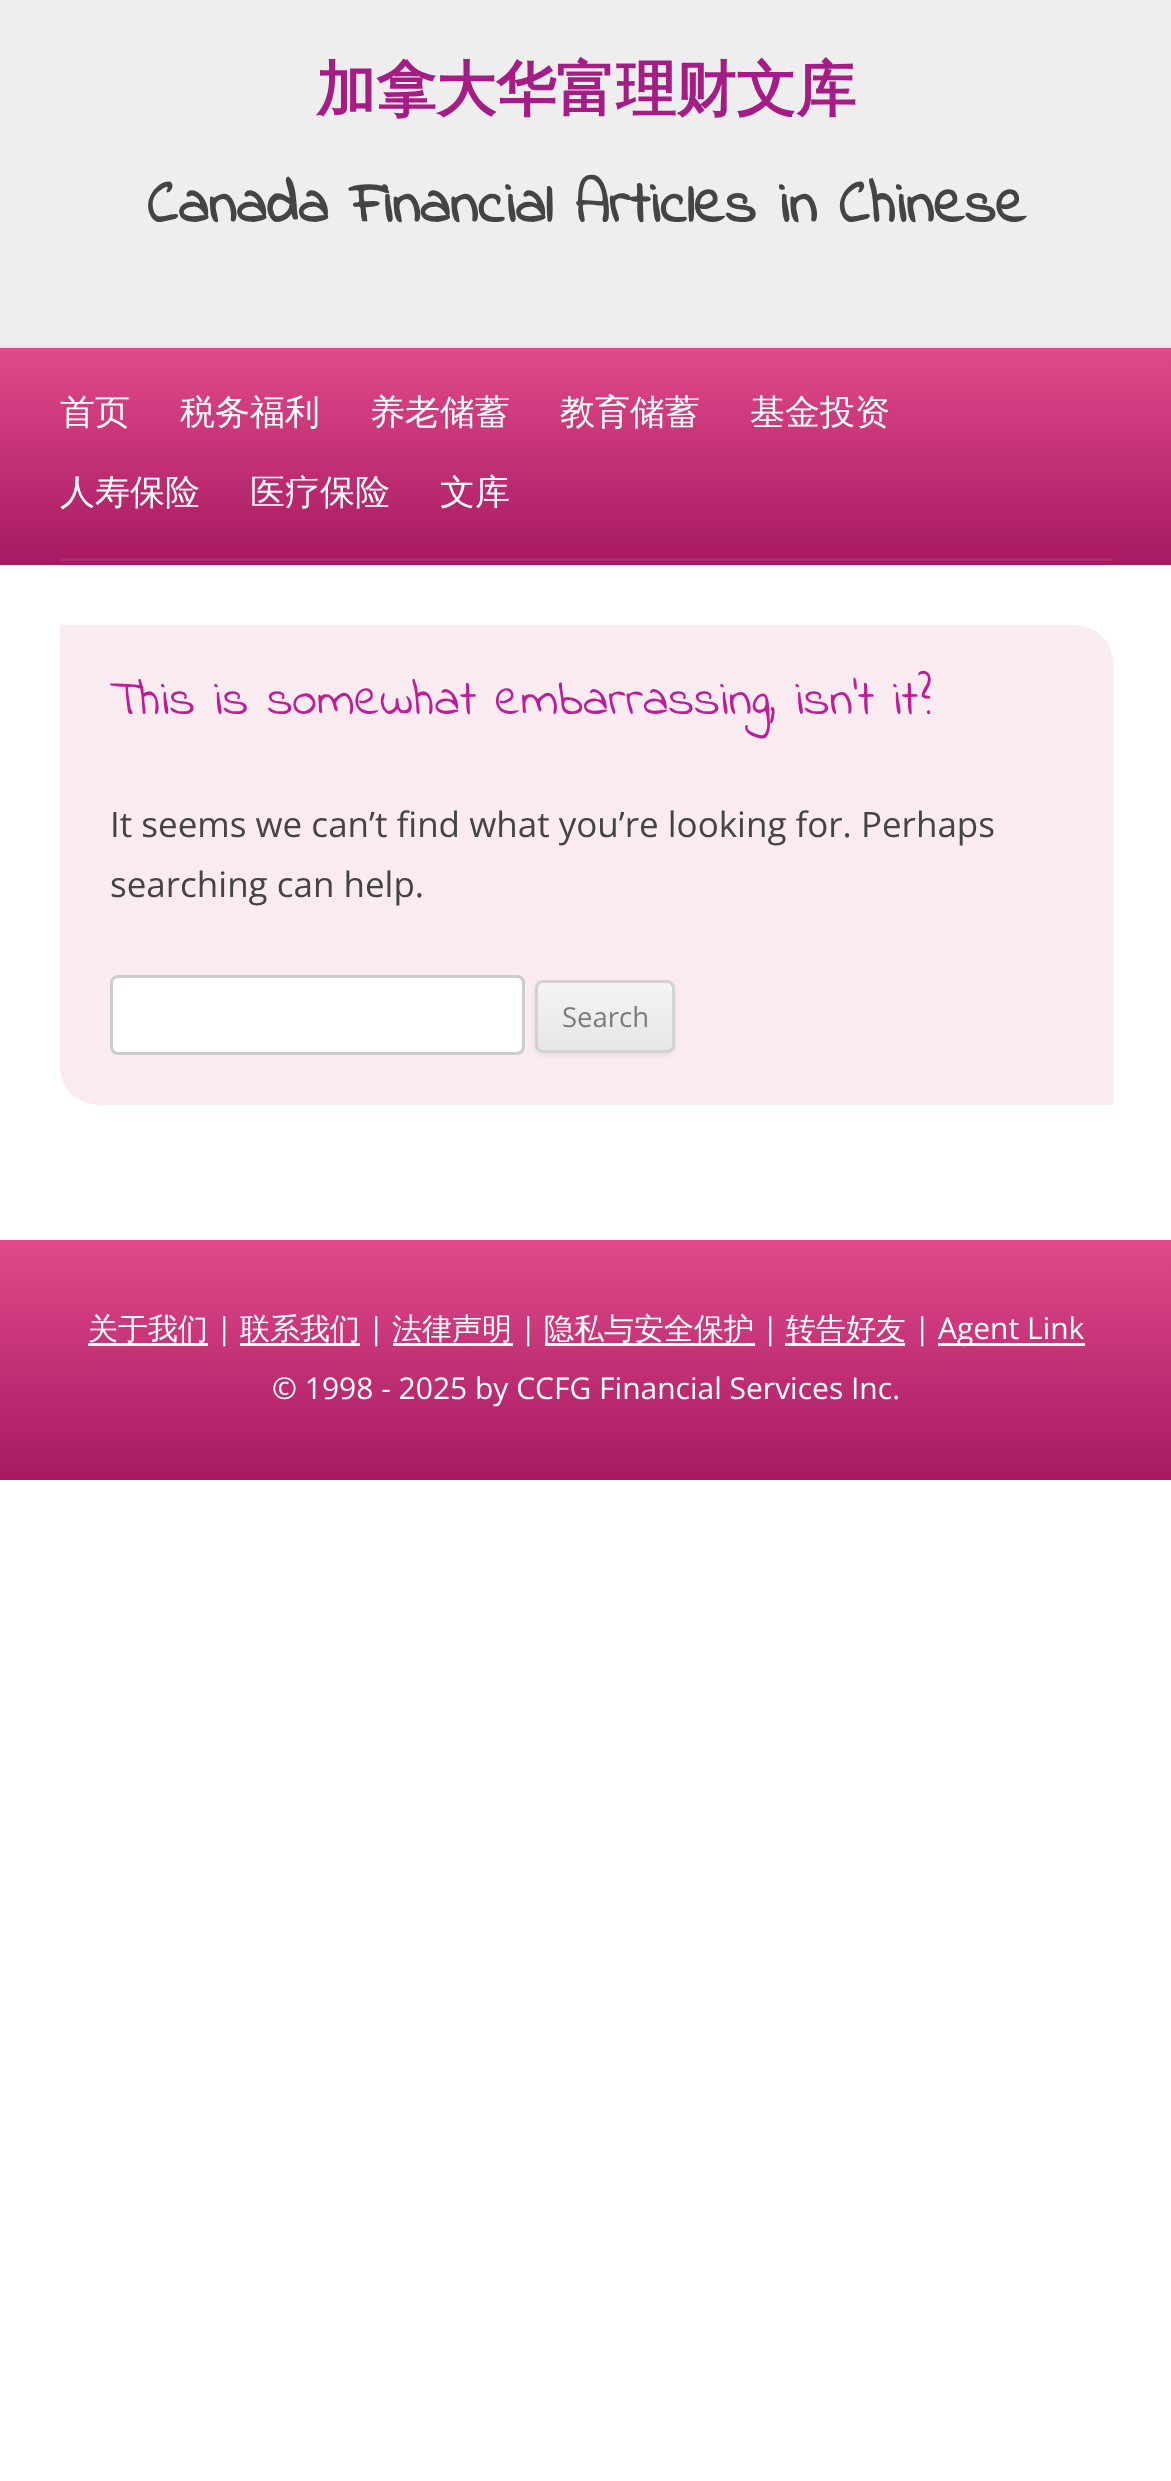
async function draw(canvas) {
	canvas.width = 1171;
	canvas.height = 2481;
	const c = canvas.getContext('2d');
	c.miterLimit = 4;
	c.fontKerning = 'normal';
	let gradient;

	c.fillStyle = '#fff';
	c.fillRect(0, 0, 1171, 2481);
	c.fillStyle = '#eee';
	c.fillRect(0, 0, 1171, 345);
	c.fillStyle = '#e8e5e6';
	c.fillRect(0, 345, 1171, 3);
	c.font = 'bold 60px WenQuanYi Zen Hei';
	c.fillStyle = '#a51c85';
	c.fillText('加拿大华富理财文库', 316, 110);
	c.font = 'bold 60px Indie Flower';
	c.fillStyle = '#444';
	c.fillText('Canada Financial Articles in Chinese', 147, 222);
	gradient = c.createLinearGradient(586, 347, 586, 565);
	gradient.addColorStop(0, '#e04a8a');
	gradient.addColorStop(1, '#a61962');
	c.fillStyle = gradient;
	c.fillRect(0, 348, 1171, 217);
	c.fillStyle = '#aa2c6d';
	c.fillRect(60, 558, 1053, 3);
	c.font = '500 35px WenQuanYi Zen Hei';
	c.fillStyle = '#fff';
	for (const [text, x, y] of [
		['首页', 60, 424],
		['税务福利', 180, 424],
		['养老储蓄', 370, 424],
		['教育储蓄', 560, 424],
		['基金投资', 750, 424],
		['人寿保险', 60, 504],
		['医疗保险', 250, 504],
		['文库', 440, 504],
	]) {
		c.fillText(text, x, y);
	}
	c.fillStyle = '#faebf1';
	c.beginPath();
	c.roundRect(60, 625, 1053, 480, [0, 38, 0, 38]);
	c.fill();
	c.font = '50px Indie Flower';
	c.fillStyle = '#bd1e98';
	c.fillText('This is somewhat embarrassing, isn’t it?', 110, 714);
	c.font = '35px Open Sans';
	c.fillStyle = '#444';
	c.fillText('It seems we can’t find what you’re looking for. Perhaps', 110, 837);
	c.fillText('searching can help.', 110, 897);
	c.fillStyle = '#fff';
	c.beginPath();
	c.roundRect(111.5, 976.5, 412, 77, 6.5);
	c.fill();
	c.strokeStyle = '#ccc';
	c.lineWidth = 3;
	c.stroke();
	c.fillStyle = '#4040401a';
	c.filter = 'blur(2.5px)';
	c.beginPath();
	c.roundRect(535, 983, 140, 72, 8);
	c.fill();
	c.filter = 'none';
	c.save();
	c.beginPath();
	c.roundRect(535, 980, 140, 73, 8);
	c.clip();
	gradient = c.createLinearGradient(605, 983, 605, 1050);
	gradient.addColorStop(0, '#f4f4f4');
	gradient.addColorStop(1, '#e6e6e6');
	c.fillStyle = gradient;
	c.fillRect(535, 983, 140, 67);
	c.restore();
	c.beginPath();
	c.roundRect(536.5, 981.5, 137, 70, 6.5);
	c.strokeStyle = '#d2d2d2';
	c.stroke();
	c.font = '27.5px Open Sans';
	c.fillStyle = '#7c7c7c';
	c.fillText('Search', 562, 1027);
	gradient = c.createLinearGradient(586, 1240, 586, 1480);
	gradient.addColorStop(0, '#e04a8a');
	gradient.addColorStop(1, '#a61962');
	c.fillStyle = gradient;
	c.fillRect(0, 1240, 1171, 240);
	c.font = '500 30px WenQuanYi Zen Hei';
	c.fillStyle = '#fff';
	c.fillText('关于我们', 88, 1339);
	c.fillRect(88, 1343, 120, 3);
	c.font = '30px Open Sans';
	c.fillText('|', 216, 1339);
	c.font = '500 30px WenQuanYi Zen Hei';
	c.fillText('联系我们', 240, 1339);
	c.fillRect(240, 1343, 120, 3);
	c.font = '30px Open Sans';
	c.fillText('|', 368, 1339);
	c.font = '500 30px WenQuanYi Zen Hei';
	c.fillText('法律声明', 392, 1339);
	c.fillRect(393, 1343, 120, 3);
	c.font = '30px Open Sans';
	c.fillText('|', 520, 1339);
	c.fillRect(545, 1343, 210, 3);
	c.font = '500 30px WenQuanYi Zen Hei';
	c.fillText('隐私与安全保护', 544, 1339);
	c.font = '30px Open Sans';
	c.fillText('|', 762, 1339);
	c.fillRect(785, 1343, 120, 3);
	c.font = '500 30px WenQuanYi Zen Hei';
	c.fillText('转告好友', 786, 1339);
	c.font = '30px Open Sans';
	c.fillText('|', 914, 1339);
	c.fillRect(938, 1343, 147, 3);
	c.fillText('Agent Link', 938, 1339);
	c.fillText('© 1998 - 2025 by CCFG Financial Services Inc.', 272, 1399);
}

draw(document.querySelector('canvas'));
